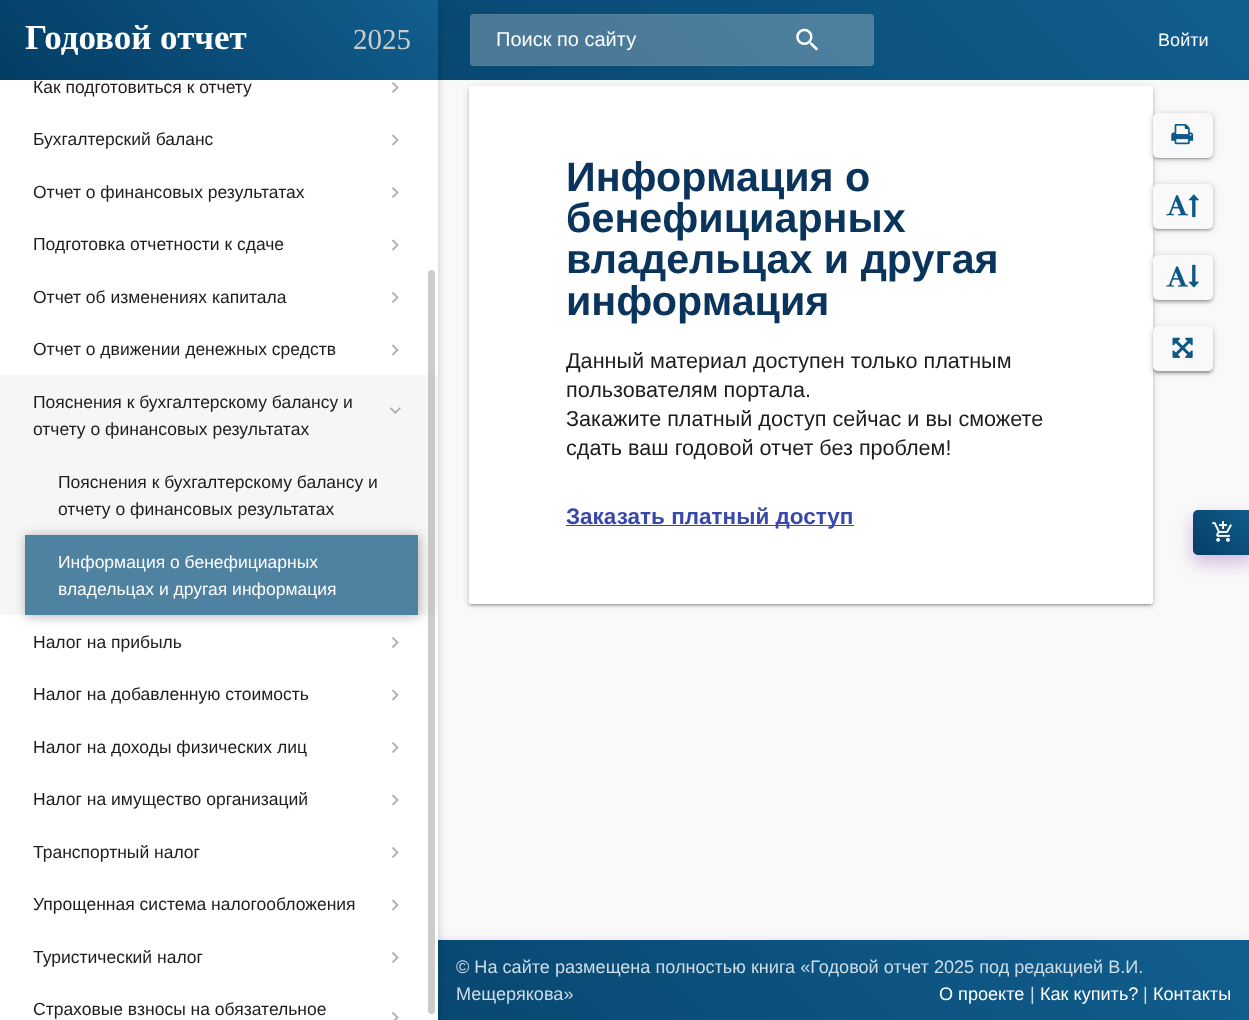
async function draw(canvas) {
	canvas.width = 1249;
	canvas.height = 1020;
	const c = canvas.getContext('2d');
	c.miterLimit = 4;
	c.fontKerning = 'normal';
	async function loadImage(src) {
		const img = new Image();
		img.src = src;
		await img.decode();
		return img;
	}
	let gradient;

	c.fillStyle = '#f9f9f9';
	c.fillRect(0, 0, 1249, 1020);
	c.fillStyle = '#00000033';
	c.filter = 'blur(3px)';
	c.beginPath();
	c.roundRect(469, 88, 684, 517, 2.5);
	c.fill();
	c.filter = 'none';
	gradient = c.createLinearGradient(293, 373, 958, -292);
	gradient.addColorStop(0, '#043d64');
	gradient.addColorStop(1, '#115e8e');
	c.fillStyle = gradient;
	c.fillRect(438, 0, 811, 80);
	c.fillStyle = '#00000033';
	c.filter = 'blur(4.5px)';
	c.beginPath();
	c.rect(0, 5, 438, 80);
	c.fill();
	c.filter = 'none';
	gradient = c.createLinearGradient(89, 169, 348, -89);
	gradient.addColorStop(0, '#043d64');
	gradient.addColorStop(1, '#115e8e');
	c.fillStyle = gradient;
	c.fillRect(0, 0, 438, 80);
	c.font = 'bold 35px Liberation Serif';
	c.fillStyle = '#fff';
	c.fillText('Годовой отчет', 25, 49);
	c.font = '29px Liberation Serif';
	c.fillStyle = '#ccc';
	c.fillText('2025', 353, 49);
	c.fillStyle = '#7b1fa24d';
	c.filter = 'blur(9px)';
	c.beginPath();
	c.rect(0, 948, 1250, 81);
	c.fill();
	c.filter = 'none';
	gradient = c.createLinearGradient(292, 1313, 958, 648);
	gradient.addColorStop(0, '#043d64');
	gradient.addColorStop(1, '#115e8e');
	c.fillStyle = gradient;
	c.fillRect(438, 940, 811, 80);
	c.fillStyle = '#00000033';
	c.filter = 'blur(4.5px)';
	c.beginPath();
	c.rect(0, 85, 438, 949);
	c.fill();
	c.filter = 'none';
	c.fillStyle = '#fff';
	c.fillRect(0, 80, 438, 940);
	c.font = '17.5px Liberation Sans';
	c.fillStyle = '#1d1d1d';
	c.fillText('Как подготовиться к отчету', 33, 93);
	c.drawImage(await loadImage('img1.png'), 392, 82, 7, 11);
	c.fillText('Бухгалтерский баланс', 33, 145);
	c.drawImage(await loadImage('img2.png'), 392, 134, 7, 12);
	c.fillText('Отчет о финансовых результатах', 33, 198);
	c.drawImage(await loadImage('img1.png'), 392, 187, 7, 11);
	c.fillText('Подготовка отчетности к сдаче', 33, 250);
	c.drawImage(await loadImage('img2.png'), 392, 239, 7, 12);
	c.fillText('Отчет об изменениях капитала', 33, 303);
	c.drawImage(await loadImage('img1.png'), 392, 292, 7, 11);
	c.fillStyle = '#f6f6f6';
	c.fillRect(0, 375, 438, 240);
	c.fillStyle = '#0000004d';
	c.filter = 'blur(6px)';
	c.beginPath();
	c.rect(26, 536, 393, 80);
	c.fill();
	c.filter = 'none';
	c.fillStyle = '#aaaaaa99';
	c.beginPath();
	c.roundRect(428, 270, 7, 744, 3.5);
	c.fill();
	c.fillStyle = '#1d1d1d';
	c.fillText('Отчет о движении денежных средств', 33, 355);
	c.drawImage(await loadImage('img2.png'), 392, 344, 7, 12);
	c.fillText('Пояснения к бухгалтерскому балансу и', 33, 408);
	c.fillText('отчету о финансовых результатах', 33, 435);
	c.drawImage(await loadImage('img3.png'), 389, 407, 12, 7);
	c.fillText('Пояснения к бухгалтерскому балансу и', 58, 488);
	c.fillText('отчету о финансовых результатах', 58, 515);
	c.fillStyle = '#4f81a1';
	c.fillRect(25, 535, 393, 80);
	c.fillStyle = '#fff';
	c.fillText('Информация о бенефициарных', 58, 568);
	c.fillText('владельцах и другая информация', 58, 595);
	c.fillStyle = '#1d1d1d';
	c.fillText('Налог на прибыль', 33, 648);
	c.drawImage(await loadImage('img1.png'), 392, 637, 7, 11);
	c.fillText('Налог на добавленную стоимость', 33, 700);
	c.drawImage(await loadImage('img2.png'), 392, 689, 7, 12);
	c.fillText('Налог на доходы физических лиц', 33, 753);
	c.drawImage(await loadImage('img1.png'), 392, 742, 7, 11);
	c.fillText('Налог на имущество организаций', 33, 805);
	c.drawImage(await loadImage('img2.png'), 392, 794, 7, 12);
	c.fillText('Транспортный налог', 33, 858);
	c.drawImage(await loadImage('img1.png'), 392, 847, 7, 11);
	c.fillText('Упрощенная система налогообложения', 33, 910);
	c.drawImage(await loadImage('img2.png'), 392, 899, 7, 12);
	c.fillText('Туристический налог', 33, 963);
	c.drawImage(await loadImage('img1.png'), 392, 952, 7, 11);
	c.fillText('Страховые взносы на обязательное', 33, 1015);
	c.drawImage(await loadImage('img4.png'), 392, 1012, 7, 8);
	c.fillStyle = '#e6e6e64d';
	c.beginPath();
	c.roundRect(470, 14, 404, 52, 4);
	c.fill();
	c.strokeStyle = '#e6e6e60d';
	c.strokeRect(470.5, 14.5, 403, 51);
	c.font = '20px Liberation Sans';
	c.fillStyle = '#fff';
	c.fillText('Поиск по сайту', 496, 46);
	c.drawImage(await loadImage('img5.png'), 796, 28, 22, 23);
	c.font = '18.1px Liberation Sans';
	c.fillText('Войти', 1158, 46);
	c.fillStyle = '#0000001f';
	c.filter = 'blur(0.5px)';
	c.beginPath();
	c.rect(471, 93, 679, 512);
	c.fill();
	c.filter = 'none';
	c.fillStyle = '#00000024';
	c.filter = 'blur(1px)';
	c.beginPath();
	c.roundRect(469, 89, 684, 517, 2.5);
	c.fill();
	c.filter = 'none';
	c.fillStyle = '#fff';
	c.beginPath();
	c.roundRect(469, 86, 684, 518, 2.5);
	c.fill();
	c.fillStyle = '#00000033';
	c.filter = 'blur(3px)';
	c.beginPath();
	c.roundRect(1153, 114, 60, 45, 5);
	c.fill();
	c.filter = 'none';
	c.fillStyle = '#0000001f';
	c.filter = 'blur(0.5px)';
	c.beginPath();
	c.roundRect(1155, 119, 55, 40, 2.5);
	c.fill();
	c.filter = 'none';
	c.fillStyle = '#00000024';
	c.filter = 'blur(1px)';
	c.beginPath();
	c.roundRect(1153, 115, 60, 45, 5);
	c.fill();
	c.filter = 'none';
	c.fillStyle = '#f9f9f9';
	c.beginPath();
	c.roundRect(1153, 113, 60, 45, 5);
	c.fill();
	c.drawImage(await loadImage('img6.png'), 1171, 124, 23, 21);
	c.font = 'bold 41.25px Liberation Sans';
	c.fillStyle = '#0a345b';
	for (const [text, x, y] of [
		['Информация о', 566, 191],
		['бенефициарных', 566, 232],
		['владельцах и другая', 566, 273],
		['информация', 566, 315],
	]) {
		c.fillText(text, x, y);
	}
	c.fillStyle = '#00000033';
	c.filter = 'blur(3px)';
	c.beginPath();
	c.roundRect(1153, 185, 60, 45, 5);
	c.fill();
	c.filter = 'none';
	c.fillStyle = '#0000001f';
	c.filter = 'blur(0.5px)';
	c.beginPath();
	c.roundRect(1155, 190, 55, 40, 2.5);
	c.fill();
	c.filter = 'none';
	c.fillStyle = '#00000024';
	c.filter = 'blur(1px)';
	c.beginPath();
	c.roundRect(1153, 186, 60, 45, 5);
	c.fill();
	c.filter = 'none';
	c.fillStyle = '#f9f9f9';
	c.beginPath();
	c.roundRect(1153, 184, 60, 45, 5);
	c.fill();
	c.drawImage(await loadImage('img7.png'), 1166, 195, 23, 21);
	c.drawImage(await loadImage('img8.png'), 1188, 194, 11, 24);
	c.fillStyle = '#00000033';
	c.filter = 'blur(3px)';
	c.beginPath();
	c.roundRect(1153, 256, 60, 45, 5);
	c.fill();
	c.filter = 'none';
	c.fillStyle = '#0000001f';
	c.filter = 'blur(0.5px)';
	c.beginPath();
	c.roundRect(1155, 261, 55, 40, 2.5);
	c.fill();
	c.filter = 'none';
	c.fillStyle = '#00000024';
	c.filter = 'blur(1px)';
	c.beginPath();
	c.roundRect(1153, 258, 60, 45, 5);
	c.fill();
	c.filter = 'none';
	c.fillStyle = '#f9f9f9';
	c.beginPath();
	c.roundRect(1153, 255, 60, 45, 5);
	c.fill();
	c.drawImage(await loadImage('img9.png'), 1166, 266, 23, 21);
	c.drawImage(await loadImage('img10.png'), 1188, 264, 11, 24);
	c.font = '21.6px Liberation Sans';
	c.fillStyle = '#1d1d1d';
	for (const [text, x, y] of [
		['Данный материал доступен только платным', 566, 368],
		['пользователям портала.', 566, 397],
		['Закажите платный доступ сейчас и вы сможете', 566, 426],
		['сдать ваш годовой отчет без проблем!', 566, 455],
	]) {
		c.fillText(text, x, y);
	}
	c.fillStyle = '#00000033';
	c.filter = 'blur(3px)';
	c.beginPath();
	c.roundRect(1153, 328, 60, 45, 5);
	c.fill();
	c.filter = 'none';
	c.fillStyle = '#0000001f';
	c.filter = 'blur(0.5px)';
	c.beginPath();
	c.roundRect(1155, 333, 55, 40, 2.5);
	c.fill();
	c.filter = 'none';
	c.fillStyle = '#00000024';
	c.filter = 'blur(1px)';
	c.beginPath();
	c.roundRect(1153, 329, 60, 45, 5);
	c.fill();
	c.filter = 'none';
	c.fillStyle = '#f9f9f9';
	c.beginPath();
	c.roundRect(1153, 326, 60, 45, 5);
	c.fill();
	c.drawImage(await loadImage('img11.png'), 1172, 337, 21, 21);
	c.fillStyle = '#3949ab';
	c.fillRect(566, 525, 288, 1);
	c.font = 'bold 22.5px Liberation Sans';
	c.fillText('Заказать платный доступ', 566, 524);
	c.fillStyle = '#7b1fa24d';
	c.filter = 'blur(9px)';
	c.beginPath();
	c.roundRect(1193, 518, 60, 45, 5);
	c.fill();
	c.filter = 'none';
	gradient = c.createLinearGradient(1196, 559, 1249, 506);
	gradient.addColorStop(0, '#043d64');
	gradient.addColorStop(1, '#115e8e');
	c.fillStyle = gradient;
	c.beginPath();
	c.roundRect(1193, 510, 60, 45, 5);
	c.fill();
	c.drawImage(await loadImage('img12.png'), 1212, 521, 20, 21);
	c.font = '18.1px Liberation Sans';
	c.fillStyle = '#cfdde7';
	c.fillText('© На сайте размещена полностью книга «Годовой отчет 2025 под редакцией В.И.', 456, 973);
	c.fillText('Мещерякова»', 456, 1000);
	c.fillStyle = '#fff';
	c.fillText('О проекте', 939, 1000);
	c.fillStyle = '#cfdde7';
	c.fillText('|', 1030, 1000);
	c.fillStyle = '#fff';
	c.fillText('Как купить?', 1040, 1000);
	c.fillStyle = '#cfdde7';
	c.fillText('|', 1143, 1000);
	c.fillStyle = '#fff';
	c.fillText('Контакты', 1153, 1000);
}

draw(document.querySelector('canvas'));
